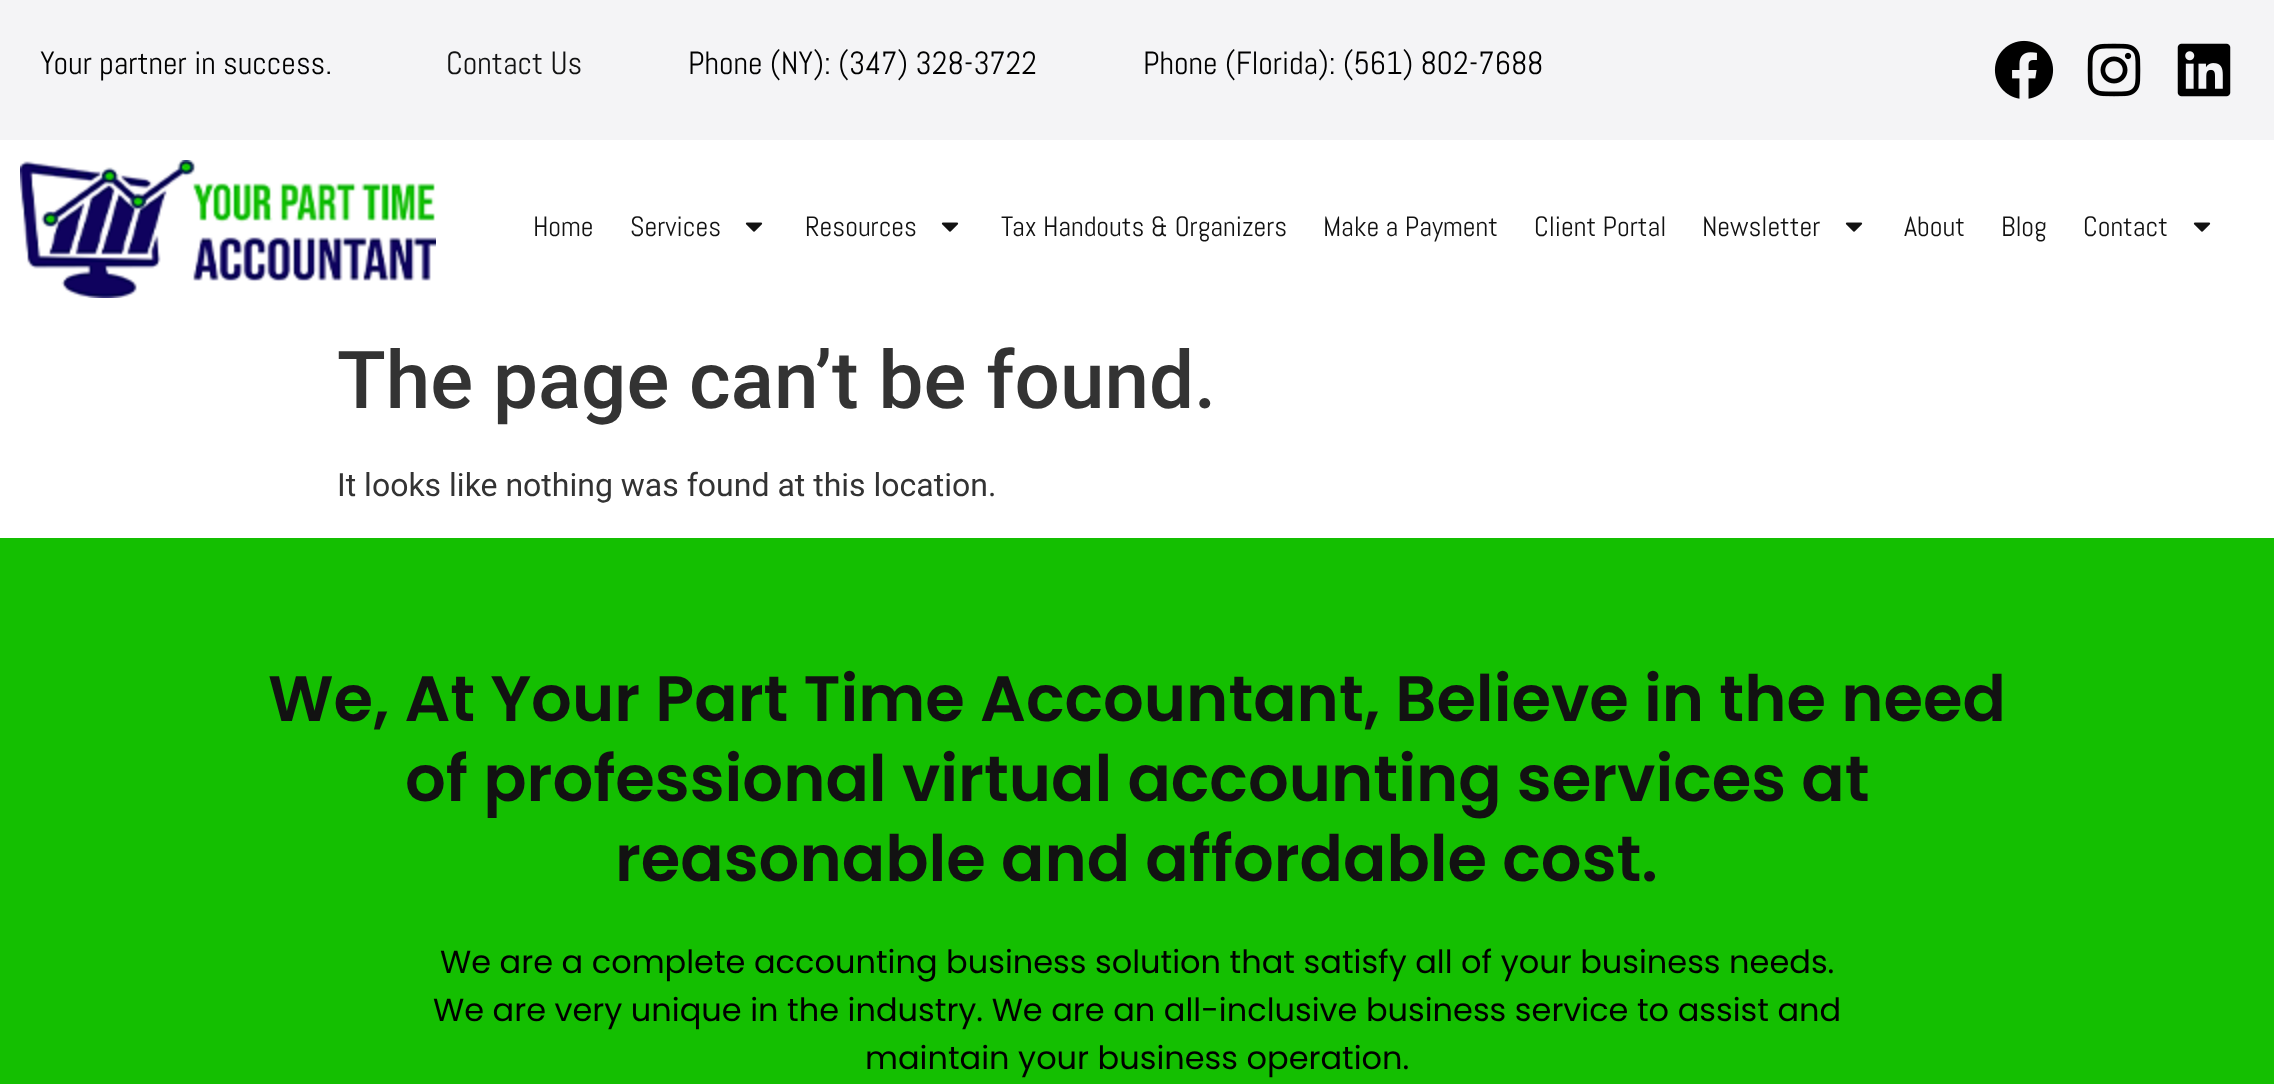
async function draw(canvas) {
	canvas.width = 2274;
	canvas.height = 1084;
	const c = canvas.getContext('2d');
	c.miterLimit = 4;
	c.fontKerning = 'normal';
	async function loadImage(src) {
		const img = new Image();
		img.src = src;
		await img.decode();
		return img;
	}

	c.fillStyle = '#fff';
	c.fillRect(0, 0, 2274, 1084);
	c.fillStyle = '#f4f4f6';
	c.fillRect(0, 0, 2274, 140);
	c.font = '32px Abel';
	c.fillStyle = '#000';
	c.fillText('Your partner in success.', 40, 74);
	c.fillStyle = '#121212';
	c.fillText('Contact Us', 446, 74);
	c.fillStyle = '#000';
	c.fillText('Phone (NY): (347) 328-3722', 688, 74);
	c.fillText('Phone (Florida): (561) 802-7688', 1143, 74);
	c.drawImage(await loadImage('img1.png'), 1994, 40, 60, 59);
	c.drawImage(await loadImage('img2.png'), 2087, 43, 54, 54);
	c.drawImage(await loadImage('img3.png'), 2177, 43, 54, 54);
	c.drawImage(await loadImage('img4.png'), 20, 160, 416, 138);
	c.font = '28px Abel';
	c.fillStyle = '#121212';
	c.fillText('Home', 533, 236);
	c.fillText('Services', 630, 236);
	c.drawImage(await loadImage('img5.png'), 745, 222, 18, 10);
	c.fillText('Resources', 805, 236);
	c.drawImage(await loadImage('img5.png'), 941, 222, 18, 10);
	for (const [text, x, y] of [
		['Tax Handouts & Organizers', 1001, 236],
		['Make a Payment', 1323, 236],
		['Client Portal', 1534, 236],
		['Newsletter', 1702, 236],
	]) {
		c.fillText(text, x, y);
	}
	c.drawImage(await loadImage('img5.png'), 1845, 222, 18, 10);
	for (const [text, x, y] of [
		['About', 1904, 236],
		['Blog', 2001, 236],
		['Contact', 2083, 236],
	]) {
		c.fillText(text, x, y);
	}
	c.drawImage(await loadImage('img5.png'), 2193, 222, 18, 10);
	c.font = '500 80px Roboto';
	c.fillStyle = '#333';
	c.fillText('The page can’t be found.', 337, 408);
	c.font = '32px Roboto';
	c.fillText('It looks like nothing was found at this location.', 337, 496);
	c.fillStyle = '#14bf01';
	c.fillRect(0, 538, 2274, 546);
	c.font = '600 64px Poppins';
	c.fillStyle = '#121212';
	for (const [text, x, y] of [
		['We, At Your Part Time Accountant, Believe in the need', 268, 721],
		['of professional virtual accounting services at', 405, 801],
		['reasonable and affordable cost.', 615, 881],
	]) {
		c.fillText(text, x, y);
	}
	c.font = '32px Poppins';
	c.fillStyle = '#000';
	for (const [text, x, y] of [
		['We are a complete accounting business solution that satisfy all of your business needs.', 440, 973],
		['We are very unique in the industry. We are an all-inclusive business service to assist and', 433, 1021],
		['maintain your business operation.', 865, 1069],
	]) {
		c.fillText(text, x, y);
	}
}

draw(document.querySelector('canvas'));
